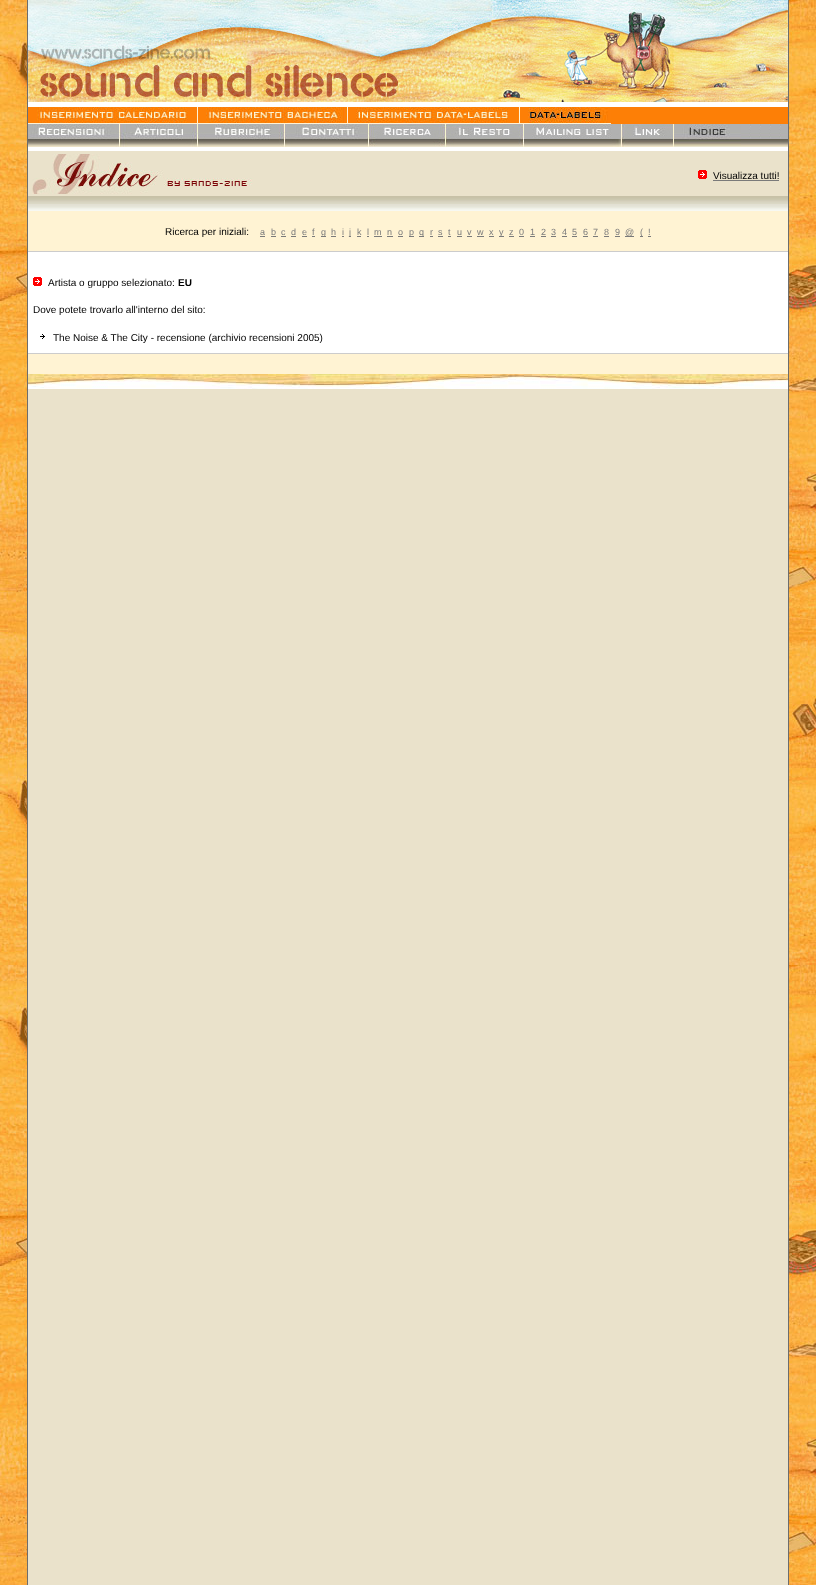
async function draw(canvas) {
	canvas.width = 816;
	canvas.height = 1585;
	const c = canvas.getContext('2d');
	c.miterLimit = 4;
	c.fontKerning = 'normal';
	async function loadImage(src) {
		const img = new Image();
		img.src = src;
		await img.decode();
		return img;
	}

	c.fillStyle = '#fff';
	c.fillRect(0, 0, 816, 1585);
	c.drawImage(await loadImage('img1.png'), 0, 0, 816, 1585);
	for (const [x, y, w, h, color] of [
		[27, 0, 1, 1585, '#6d6d6d'],
		[28, 211, 760, 163, '#fff3d3'],
		[28, 102, 760, 49, '#fff'],
	]) {
		c.fillStyle = color;
		c.fillRect(x, y, w, h);
	}
	c.drawImage(await loadImage('img2.png'), 28, 0, 760, 102);
	c.drawImage(await loadImage('img3.png'), 28, 107, 170, 17);
	c.drawImage(await loadImage('img4.png'), 198, 107, 150, 17);
	c.drawImage(await loadImage('img5.png'), 348, 107, 172, 17);
	c.drawImage(await loadImage('img6.png'), 520, 107, 91, 17);
	c.fillStyle = '#fd7f06';
	c.fillRect(611, 107, 177, 17);
	c.drawImage(await loadImage('img7.png'), 28, 124, 92, 23);
	c.drawImage(await loadImage('img8.png'), 120, 124, 78, 23);
	c.drawImage(await loadImage('img9.png'), 198, 124, 87, 23);
	c.drawImage(await loadImage('img10.png'), 285, 124, 84, 23);
	c.drawImage(await loadImage('img11.png'), 369, 124, 77, 23);
	c.drawImage(await loadImage('img12.png'), 446, 124, 78, 23);
	c.drawImage(await loadImage('img13.png'), 524, 124, 98, 23);
	c.drawImage(await loadImage('img14.png'), 622, 124, 52, 23);
	c.drawImage(await loadImage('img15.png'), 674, 124, 67, 23);
	c.drawImage(await loadImage('img16.png'), 741, 124, 47, 23);
	c.fillStyle = '#eae2cb';
	c.fillRect(28, 151, 760, 45);
	c.drawImage(await loadImage('img17.png'), 32, 154, 220, 40);
	c.drawImage(await loadImage('img18.png'), 698, 170, 9, 9);
	c.font = '10px Liberation Sans';
	c.fillStyle = '#000';
	c.fillText('Visualizza tutti!', 713, 179);
	c.fillStyle = '#7a7a7a';
	c.fillRect(713, 180, 66, 1);
	c.drawImage(await loadImage('img19.png'), 28, 196, 760, 15);
	c.fillStyle = '#000';
	c.fillText('Ricerca per iniziali:', 165, 235);
	c.font = '9px Liberation Sans';
	c.fillStyle = '#7a7a7a';
	c.fillText('a', 260, 235);
	c.fillRect(260, 236, 5, 1);
	c.fillText('b', 271, 235);
	c.fillRect(271, 236, 5, 1);
	c.fillText('c', 281, 235);
	c.fillRect(281, 236, 5, 1);
	c.fillText('d', 291, 235);
	c.fillRect(291, 236, 5, 1);
	c.fillText('e', 302, 235);
	c.fillRect(302, 236, 5, 1);
	c.fillText('f', 312, 235);
	c.fillRect(312, 236, 3, 1);
	c.fillRect(321, 236, 5, 1);
	c.fillText('g', 321, 235);
	c.fillText('h', 331, 235);
	c.fillRect(331, 236, 5, 1);
	c.fillText('i', 342, 235);
	c.fillRect(342, 236, 2, 1);
	c.fillRect(349, 236, 2, 1);
	c.fillText('j', 349, 235);
	c.fillText('k', 357, 235);
	c.fillRect(357, 236, 4, 1);
	c.fillText('l', 367, 235);
	c.fillRect(367, 236, 2, 1);
	c.fillText('m', 374, 235);
	c.fillRect(374, 236, 8, 1);
	c.fillText('n', 387, 235);
	c.fillRect(387, 236, 6, 1);
	c.fillText('o', 398, 235);
	c.fillRect(398, 236, 5, 1);
	c.fillRect(409, 236, 5, 1);
	c.fillText('p', 409, 235);
	c.fillRect(419, 236, 5, 1);
	c.fillText('q', 419, 235);
	c.fillText('r', 430, 235);
	c.fillRect(430, 236, 3, 1);
	c.fillText('s', 438, 235);
	c.fillRect(438, 236, 5, 1);
	c.fillText('t', 448, 235);
	c.fillRect(448, 236, 3, 1);
	c.fillText('u', 457, 235);
	c.fillRect(457, 236, 5, 1);
	c.fillText('v', 467, 235);
	c.fillRect(467, 236, 5, 1);
	c.fillText('w', 477, 235);
	c.fillRect(477, 236, 7, 1);
	c.fillText('x', 489, 235);
	c.fillRect(489, 236, 5, 1);
	c.fillRect(499, 236, 5, 1);
	c.fillText('y', 499, 235);
	c.fillText('z', 509, 235);
	c.fillRect(509, 236, 5, 1);
	c.fillText('0', 519, 235);
	c.fillRect(519, 236, 5, 1);
	c.fillText('1', 530, 235);
	c.fillRect(530, 236, 5, 1);
	c.fillText('2', 541, 235);
	c.fillRect(541, 236, 5, 1);
	c.fillText('3', 551, 235);
	c.fillRect(551, 236, 5, 1);
	c.fillText('4', 562, 235);
	c.fillRect(562, 236, 5, 1);
	c.fillText('5', 572, 235);
	c.fillRect(572, 236, 5, 1);
	c.fillText('6', 583, 235);
	c.fillRect(583, 236, 5, 1);
	c.fillText('7', 593, 235);
	c.fillRect(593, 236, 5, 1);
	c.fillText('8', 604, 235);
	c.fillRect(604, 236, 5, 1);
	c.fillText('9', 615, 235);
	c.fillRect(615, 236, 5, 1);
	c.fillRect(625, 236, 9, 1);
	c.fillText('@', 625, 235);
	c.fillRect(640, 236, 3, 1);
	c.fillText('(', 640, 235);
	c.fillText('!', 648, 235);
	for (const [x, y, w, h, color] of [
		[648, 236, 3, 1, '#7a7a7a'],
		[28, 251, 760, 1, '#ccc'],
		[28, 252, 760, 101, '#fff'],
	]) {
		c.fillStyle = color;
		c.fillRect(x, y, w, h);
	}
	c.drawImage(await loadImage('img20.png'), 33, 277, 9, 9);
	c.font = '10px Liberation Sans';
	c.fillStyle = '#000';
	c.fillText('Artista o gruppo selezionato:', 48, 286);
	c.font = 'bold 10px Liberation Sans';
	c.fillText('EU', 178, 286);
	c.font = '10px Liberation Sans';
	c.fillText('Dove potete trovarlo all\'interno del sito:', 33, 313);
	c.drawImage(await loadImage('img21.png'), 40, 334, 5, 5);
	c.fillText('The Noise & The City - recensione (archivio recensioni 2005)', 53, 341);
	c.fillStyle = '#ccc';
	c.fillRect(28, 353, 760, 1);
	c.drawImage(await loadImage('img22.png'), 28, 374, 760, 15);
	c.fillStyle = '#eae2cb';
	c.fillRect(28, 389, 760, 1196);
	c.fillStyle = '#6d6d6d';
	c.fillRect(788, 0, 1, 1585);
}

draw(document.querySelector('canvas'));
